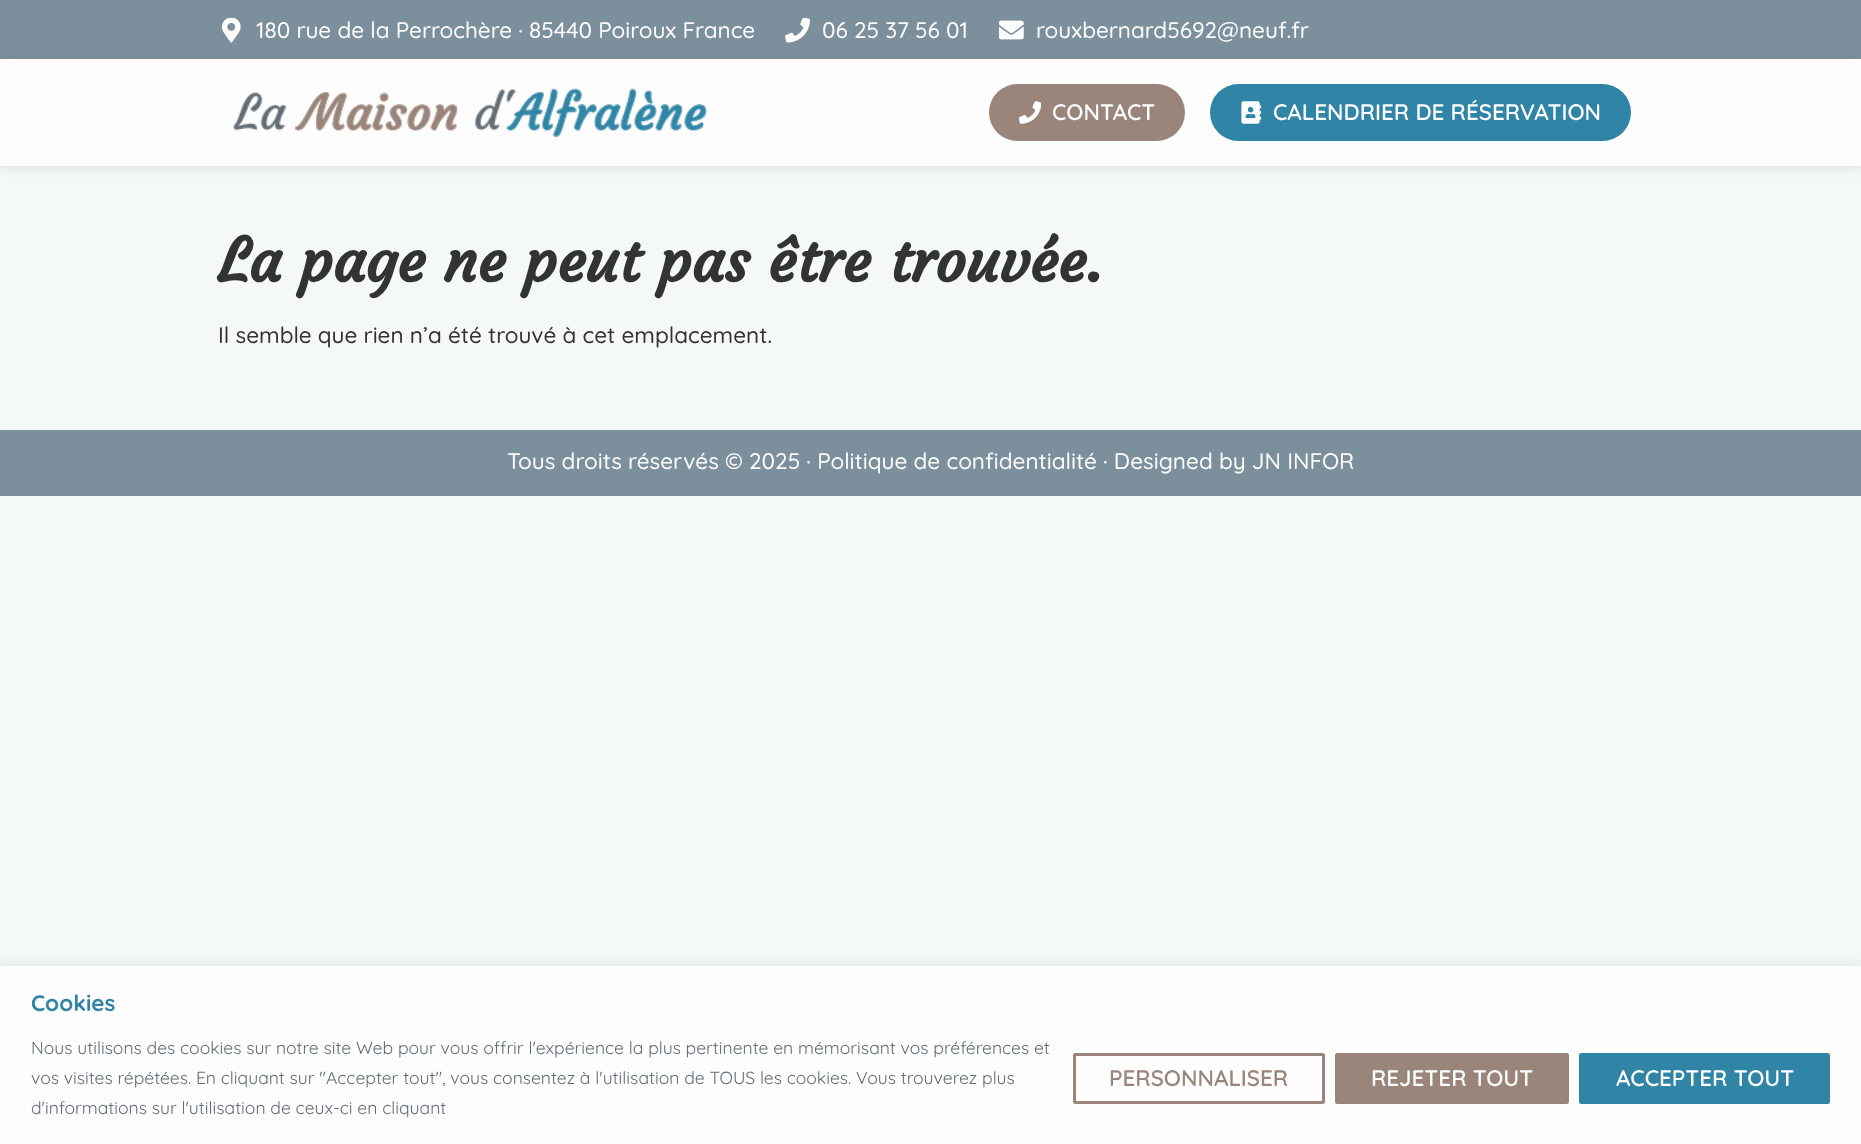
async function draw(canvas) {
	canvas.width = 1861;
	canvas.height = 1144;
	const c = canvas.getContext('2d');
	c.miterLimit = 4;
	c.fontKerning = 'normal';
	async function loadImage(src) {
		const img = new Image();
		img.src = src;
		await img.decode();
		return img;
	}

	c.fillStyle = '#f4f9f8';
	c.fillRect(0, 0, 1861, 1144);
	c.fillStyle = '#7c8f9c';
	c.fillRect(0, 0, 1861, 59);
	c.drawImage(await loadImage('img1.png'), 221, 18, 20, 25);
	c.font = '500 22.5px Quicksand';
	c.fillStyle = '#fdfdfd';
	c.fillText('180 rue de la Perrochère · 85440 Poiroux France', 256, 38);
	c.drawImage(await loadImage('img2.png'), 785, 18, 25, 25);
	c.fillText('06 25 37 56 01', 822, 38);
	c.drawImage(await loadImage('img3.png'), 999, 20, 25, 20);
	c.fillText('rouxbernard5692@neuf.fr', 1036, 38);
	c.fillStyle = '#626d7440';
	c.filter = 'blur(6px)';
	c.beginPath();
	c.rect(0, 59, 1861, 107);
	c.fill();
	c.filter = 'none';
	c.fillStyle = '#fdfdfd';
	c.fillRect(0, 59, 1861, 107);
	c.drawImage(await loadImage('img4.png'), 233, 88, 474, 50);
	c.fillStyle = '#99857a';
	c.beginPath();
	c.roundRect(989, 84, 196, 57, 28.5);
	c.fill();
	c.drawImage(await loadImage('img5.png'), 1019, 101, 22, 23);
	c.font = '600 22.5px Quicksand';
	c.fillStyle = '#fdfdfd';
	c.fillText('CONTACT', 1052, 120);
	c.fillStyle = '#3085a6';
	c.beginPath();
	c.roundRect(1210, 84, 421, 57, 28.5);
	c.fill();
	c.drawImage(await loadImage('img6.png'), 1241, 101, 21, 23);
	c.fillStyle = '#fdfdfd';
	c.fillText('CALENDRIER DE RÉSERVATION', 1273, 120);
	c.font = 'bold 60px Courgette';
	c.fillStyle = '#333';
	c.fillText('La page ne peut pas être trouvée.', 218, 282);
	c.font = '500 22.5px Quicksand';
	c.fillText('Il semble que rien n’a été trouvé à cet emplacement.', 218, 343);
	c.fillStyle = '#7c8f9c';
	c.fillRect(0, 430, 1861, 66);
	c.fillStyle = '#fdfdfd';
	c.fillText('Tous droits réservés © 2025 · Politique de confidentialité · Designed by JN INFOR', 507, 469);
	c.fillStyle = '#acabab4d';
	c.filter = 'blur(6px)';
	c.beginPath();
	c.rect(0, 965, 1861, 179);
	c.fill();
	c.filter = 'none';
	c.fillStyle = '#fdfdfd';
	c.fillRect(0, 966, 1861, 178);
	c.font = 'bold 22.5px Quicksand';
	c.fillStyle = '#3085a6';
	c.fillText('Cookies', 31, 1011);
	c.font = '17.5px Quicksand';
	c.fillStyle = '#626d74';
	for (const [text, x, y] of [
		['Nous utilisons des cookies sur notre site Web pour vous offrir l\'expérience la plus pertinente en mémorisant vos préférences et', 31, 1054],
		['vos visites répétées. En cliquant sur "Accepter tout", vous consentez à l\'utilisation de TOUS les cookies. Vous trouverez plus', 31, 1084],
		['d\'informations sur l\'utilisation de ceux-ci en cliquant', 31, 1114],
	]) {
		c.fillText(text, x, y);
	}
	c.beginPath();
	c.roundRect(1074.5, 1054.5, 249, 48, 1);
	c.strokeStyle = '#99857a';
	c.lineWidth = 3;
	c.stroke();
	c.font = '600 22.5px Quicksand';
	c.fillStyle = '#99857a';
	c.fillText('PERSONNALISER', 1109, 1086);
	c.beginPath();
	c.roundRect(1336.5, 1054.5, 231, 48, 1);
	c.fill();
	c.stroke();
	c.fillStyle = '#fdfdfd';
	c.fillText('REJETER TOUT', 1371, 1086);
	c.fillStyle = '#3085a6';
	c.beginPath();
	c.roundRect(1580.5, 1054.5, 248, 48, 1);
	c.fill();
	c.strokeStyle = '#3085a6';
	c.stroke();
	c.fillStyle = '#fdfdfd';
	c.fillText('ACCEPTER TOUT', 1616, 1086);
}

draw(document.querySelector('canvas'));
